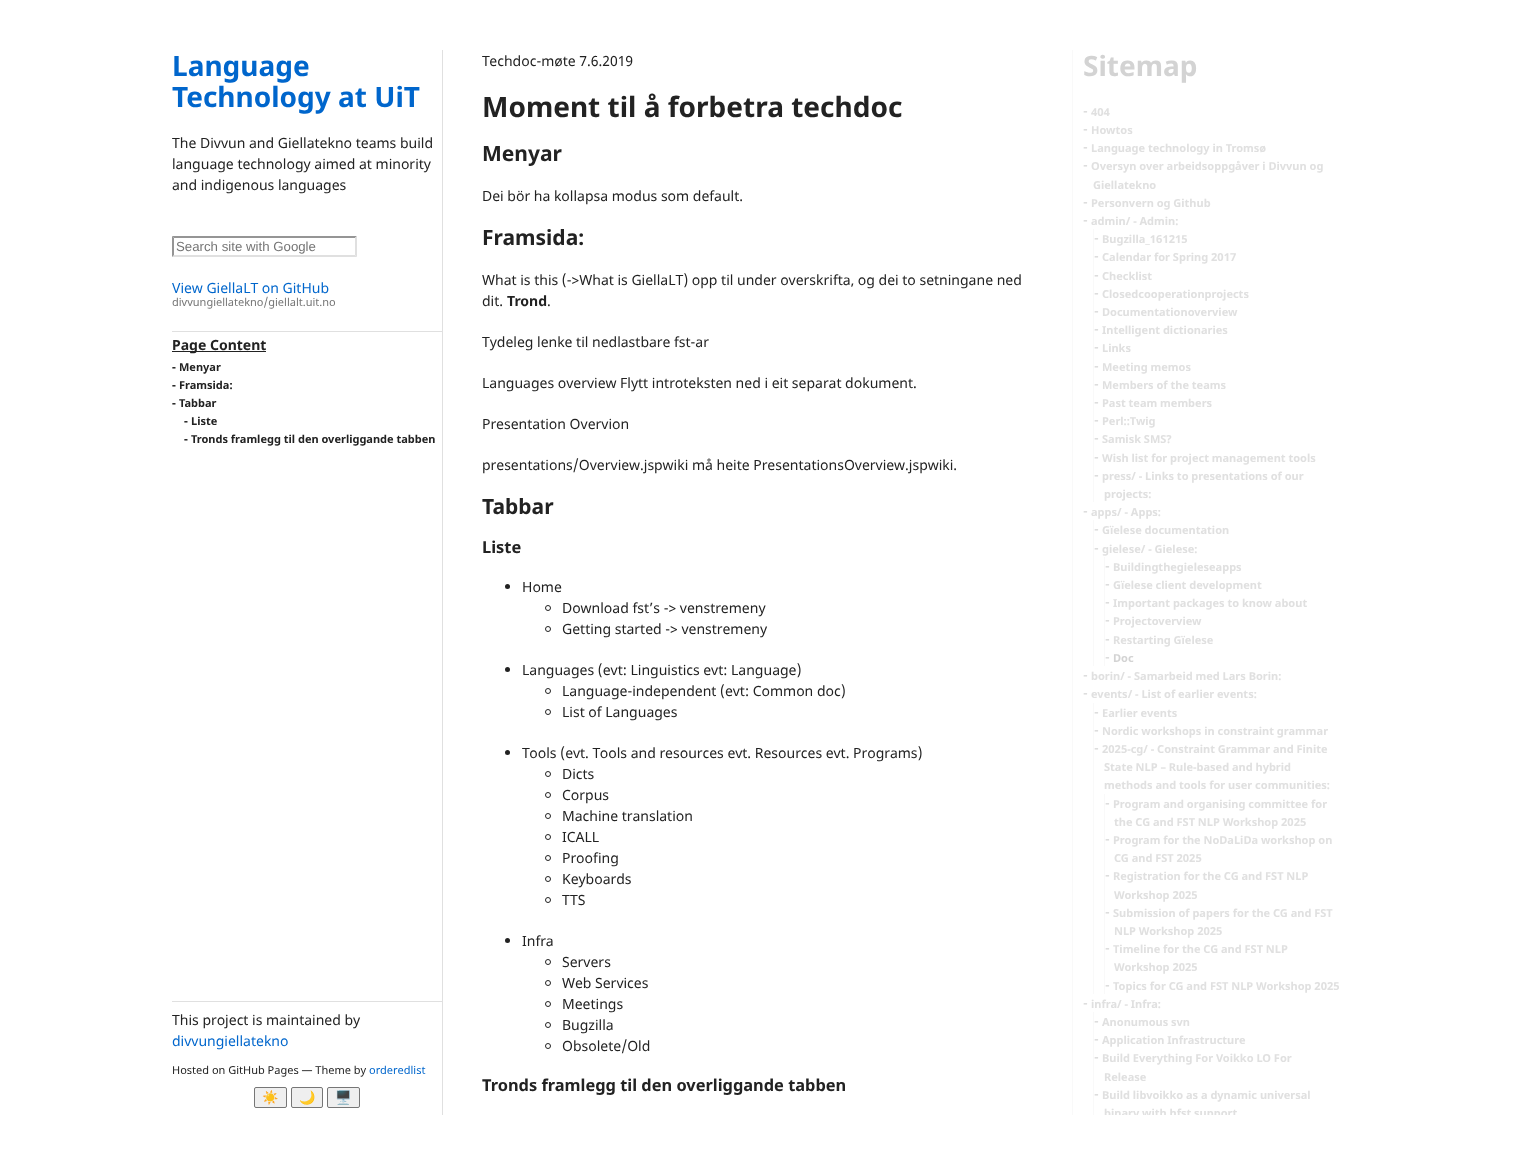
async function draw(canvas) {
	canvas.width = 1514;
	canvas.height = 1165;
	const c = canvas.getContext('2d');
	c.miterLimit = 4;
	c.fontKerning = 'normal';
	let gradient;

	c.fillStyle = '#fff';
	c.fillRect(0, 0, 1514, 1165);
	c.fillStyle = '#e0e0e0';
	c.fillRect(442, 50, 1, 953);
	c.font = 'bold 28px Noto Sans';
	c.fillStyle = '#06c';
	c.fillText('Language', 172, 76);
	c.fillText('Technology at UiT', 172, 107);
	c.font = '14px Noto Sans';
	c.fillStyle = '#222';
	for (const [text, x, y] of [
		['The Divvun and Giellatekno teams build', 172, 148],
		['language technology aimed at minority', 172, 169],
		['and indigenous languages', 172, 190],
	]) {
		c.fillText(text, x, y);
	}
	c.fillStyle = '#959595';
	c.beginPath();
	c.moveTo(172, 236);
	c.lineTo(357, 236);
	c.lineTo(355, 238);
	c.lineTo(174, 238);
	c.closePath();
	c.fill();
	c.fillStyle = '#e0e0e0';
	c.beginPath();
	c.moveTo(357, 236);
	c.lineTo(357, 257);
	c.lineTo(355, 255);
	c.lineTo(355, 238);
	c.closePath();
	c.fill();
	c.beginPath();
	c.moveTo(357, 257);
	c.lineTo(172, 257);
	c.lineTo(174, 255);
	c.lineTo(355, 255);
	c.closePath();
	c.fill();
	c.fillStyle = '#959595';
	c.beginPath();
	c.moveTo(172, 257);
	c.lineTo(172, 236);
	c.lineTo(174, 238);
	c.lineTo(174, 255);
	c.closePath();
	c.fill();
	c.font = '13.25px Liberation Sans';
	c.fillStyle = '#757575';
	c.fillText('Search site with Google', 176, 251);
	c.font = '14px Noto Sans';
	c.fillStyle = '#06c';
	c.fillText('View GiellaLT on GitHub', 172, 293);
	c.font = '11px Noto Sans';
	c.fillStyle = '#757575';
	c.fillText('divvungiellatekno/giellalt.uit.no', 172, 306);
	c.fillStyle = '#e0e0e0';
	c.fillRect(172, 331, 270, 1);
	c.fillStyle = '#222';
	c.fillRect(172, 351, 94, 1);
	c.font = 'bold 14px Noto Sans';
	c.fillText('Page Content', 172, 350);
	gradient = c.createRadialGradient(307, 9671.79, 0, 307, 9671.79, 135);
	gradient.addColorStop(0, '#ebebeb');
	gradient.addColorStop(1, '#fff');
	c.fillStyle = gradient;
	c.beginPath();
	c.roundRect(172, 989, 270, 14, [0, 0, 5, 5]);
	c.save();
	c.clip();
	c.scale(1, 14 / 135);
	c.fillRect(0, 0, 1514, 11234);
	c.restore();
	gradient = c.createRadialGradient(307, 3452.14, 0, 307, 3452.14, 135);
	gradient.addColorStop(0, '#ebebeb');
	gradient.addColorStop(1, '#fff');
	c.fillStyle = gradient;
	c.beginPath();
	c.roundRect(172, 358, 270, 14, [5, 5, 0, 0]);
	c.save();
	c.clip();
	c.scale(1, 14 / 135);
	c.fillRect(0, 0, 1514, 11234);
	c.restore();
	gradient = c.createLinearGradient(307, 963, 307, 1003);
	gradient.addColorStop(0, '#ffffff00');
	gradient.addColorStop(0.7, '#fff');
	c.fillStyle = gradient;
	c.beginPath();
	c.roundRect(172, 963, 270, 40, [0, 0, 5, 5]);
	c.fill();
	gradient = c.createLinearGradient(307, 358, 307, 398);
	gradient.addColorStop(0.3, '#fff');
	gradient.addColorStop(1, '#ffffff00');
	c.fillStyle = gradient;
	c.beginPath();
	c.roundRect(172, 358, 270, 40, [5, 5, 0, 0]);
	c.fill();
	c.font = 'bold 12px Noto Sans';
	c.fillStyle = '#222';
	c.fillText('-', 172, 371);
	c.font = 'bold 11px Noto Sans';
	c.fillText('Menyar', 179, 371);
	c.font = 'bold 12px Noto Sans';
	c.fillText('-', 172, 389);
	c.font = 'bold 11px Noto Sans';
	c.fillText('Framsida:', 179, 389);
	c.font = 'bold 12px Noto Sans';
	c.fillText('-', 172, 407);
	c.font = 'bold 11px Noto Sans';
	c.fillText('Tabbar', 179, 407);
	c.font = 'bold 12px Noto Sans';
	c.fillText('-', 184, 425);
	c.font = 'bold 11px Noto Sans';
	c.fillText('Liste', 191, 425);
	c.font = 'bold 12px Noto Sans';
	c.fillText('-', 184, 443);
	c.font = 'bold 11px Noto Sans';
	c.fillText('Tronds framlegg til den overliggande tabben', 191, 443);
	c.font = '14px Noto Sans';
	c.fillText('Techdoc-møte 7.6.2019', 482, 66);
	c.font = 'bold 28px Noto Sans';
	c.fillText('Moment til å forbetra techdoc', 482, 117);
	c.font = 'bold 21px Noto Sans';
	c.fillText('Menyar', 482, 161);
	c.font = '14px Noto Sans';
	c.fillText('Dei bör ha kollapsa modus som default.', 482, 201);
	c.font = 'bold 21px Noto Sans';
	c.fillText('Framsida:', 482, 245);
	c.font = '14px Noto Sans';
	c.fillText('What is this (->What is GiellaLT) opp til under overskrifta, og dei to setningane ned', 482, 285);
	c.fillText('dit.', 482, 306);
	c.font = 'bold 14px Noto Sans';
	c.fillText('Trond', 507, 306);
	c.font = '14px Noto Sans';
	for (const [text, x, y] of [
		['.', 547, 306],
		['Tydeleg lenke til nedlastbare fst-ar', 482, 347],
		['Languages overview Flytt introteksten ned i eit separat dokument.', 482, 388],
		['Presentation Overvion', 482, 429],
		['presentations/Overview.jspwiki må heite PresentationsOverview.jspwiki.', 482, 470],
	]) {
		c.fillText(text, x, y);
	}
	c.font = 'bold 21px Noto Sans';
	c.fillText('Tabbar', 482, 514);
	c.font = 'bold 16.4px Noto Sans';
	c.fillText('Liste', 482, 553);
	c.beginPath();
	c.arc(507.5, 586.5, 2.5, 0, 2 * Math.PI);
	c.fill();
	c.font = '14px Noto Sans';
	c.fillText('Home', 522, 592);
	c.beginPath();
	c.arc(548, 608, 2.5, 0, 2 * Math.PI);
	c.strokeStyle = '#222';
	c.stroke();
	c.fillText('Download fst’s -> venstremeny', 562, 613);
	c.beginPath();
	c.arc(548, 629, 2.5, 0, 2 * Math.PI);
	c.stroke();
	c.fillText('Getting started -> venstremeny', 562, 634);
	c.beginPath();
	c.arc(507.5, 669.5, 2.5, 0, 2 * Math.PI);
	c.fill();
	c.fillText('Languages (evt: Linguistics evt: Language)', 522, 675);
	c.beginPath();
	c.arc(548, 691, 2.5, 0, 2 * Math.PI);
	c.stroke();
	c.fillText('Language-independent (evt: Common doc)', 562, 696);
	c.beginPath();
	c.arc(548, 712, 2.5, 0, 2 * Math.PI);
	c.stroke();
	c.fillText('List of Languages', 562, 717);
	c.beginPath();
	c.arc(507.5, 752.5, 2.5, 0, 2 * Math.PI);
	c.fill();
	c.fillText('Tools (evt. Tools and resources evt. Resources evt. Programs)', 522, 758);
	c.beginPath();
	c.arc(548, 774, 2.5, 0, 2 * Math.PI);
	c.stroke();
	c.fillText('Dicts', 562, 779);
	c.beginPath();
	c.arc(548, 795, 2.5, 0, 2 * Math.PI);
	c.stroke();
	c.fillText('Corpus', 562, 800);
	c.beginPath();
	c.arc(548, 816, 2.5, 0, 2 * Math.PI);
	c.stroke();
	c.fillText('Machine translation', 562, 821);
	c.beginPath();
	c.arc(548, 837, 2.5, 0, 2 * Math.PI);
	c.stroke();
	c.fillText('ICALL', 562, 842);
	c.beginPath();
	c.arc(548, 858, 2.5, 0, 2 * Math.PI);
	c.stroke();
	c.fillText('Proofing', 562, 863);
	c.beginPath();
	c.arc(548, 879, 2.5, 0, 2 * Math.PI);
	c.stroke();
	c.fillText('Keyboards', 562, 884);
	c.beginPath();
	c.arc(548, 900, 2.5, 0, 2 * Math.PI);
	c.stroke();
	c.fillText('TTS', 562, 905);
	c.beginPath();
	c.arc(507.5, 940.5, 2.5, 0, 2 * Math.PI);
	c.fill();
	c.fillText('Infra', 522, 946);
	c.beginPath();
	c.arc(548, 962, 2.5, 0, 2 * Math.PI);
	c.stroke();
	c.fillText('Servers', 562, 967);
	c.beginPath();
	c.arc(548, 983, 2.5, 0, 2 * Math.PI);
	c.stroke();
	c.fillText('Web Services', 562, 988);
	c.beginPath();
	c.arc(548, 1004, 2.5, 0, 2 * Math.PI);
	c.stroke();
	c.fillText('Meetings', 562, 1009);
	c.beginPath();
	c.arc(548, 1025, 2.5, 0, 2 * Math.PI);
	c.stroke();
	c.fillText('Bugzilla', 562, 1030);
	c.beginPath();
	c.arc(548, 1046, 2.5, 0, 2 * Math.PI);
	c.stroke();
	c.fillText('Obsolete/Old', 562, 1051);
	c.font = 'bold 16.4px Noto Sans';
	c.fillText('Tronds framlegg til den overliggande tabben', 482, 1091);
	c.fillStyle = '#f9f9f9';
	c.fillRect(1072, 50, 1, 1065);
	c.font = 'bold 28px Noto Sans';
	c.fillStyle = '#d3d3d3';
	c.fillText('Sitemap', 1083, 76);
	c.font = '14px Noto Sans';
	c.fillText('-', 1083, 116);
	c.font = 'bold 11px Noto Sans';
	c.fillStyle = '#e0e0e0';
	c.fillText('404', 1091, 116);
	c.font = '14px Noto Sans';
	c.fillStyle = '#d3d3d3';
	c.fillText('-', 1083, 134);
	c.font = 'bold 11px Noto Sans';
	c.fillStyle = '#e0e0e0';
	c.fillText('Howtos', 1091, 134);
	c.font = '14px Noto Sans';
	c.fillStyle = '#d3d3d3';
	c.fillText('-', 1083, 152);
	c.font = 'bold 11px Noto Sans';
	c.fillStyle = '#e0e0e0';
	c.fillText('Language technology in Tromsø', 1091, 152);
	c.font = '14px Noto Sans';
	c.fillStyle = '#d3d3d3';
	c.fillText('-', 1083, 170);
	c.font = 'bold 11px Noto Sans';
	c.fillStyle = '#e0e0e0';
	c.fillText('Oversyn over arbeidsoppgåver i Divvun og', 1091, 170);
	c.fillText('Giellatekno', 1093, 189);
	c.font = '14px Noto Sans';
	c.fillStyle = '#d3d3d3';
	c.fillText('-', 1083, 207);
	c.font = 'bold 11px Noto Sans';
	c.fillStyle = '#e0e0e0';
	c.fillText('Personvern og Github', 1091, 207);
	c.font = '14px Noto Sans';
	c.fillStyle = '#d3d3d3';
	c.fillText('-', 1083, 225);
	c.font = 'bold 11px Noto Sans';
	c.fillStyle = '#e0e0e0';
	c.fillText('admin/ - Admin:', 1091, 225);
	c.fillStyle = '#f9f9f9';
	c.fillRect(1093, 229, 1, 273);
	c.font = '14px Noto Sans';
	c.fillStyle = '#d3d3d3';
	c.fillText('-', 1094, 243);
	c.font = 'bold 11px Noto Sans';
	c.fillStyle = '#e0e0e0';
	c.fillText('Bugzilla_161215', 1102, 243);
	c.font = '14px Noto Sans';
	c.fillStyle = '#d3d3d3';
	c.fillText('-', 1094, 261);
	c.font = 'bold 11px Noto Sans';
	c.fillStyle = '#e0e0e0';
	c.fillText('Calendar for Spring 2017', 1102, 261);
	c.font = '14px Noto Sans';
	c.fillStyle = '#d3d3d3';
	c.fillText('-', 1094, 280);
	c.font = 'bold 11px Noto Sans';
	c.fillStyle = '#e0e0e0';
	c.fillText('Checklist', 1102, 280);
	c.font = '14px Noto Sans';
	c.fillStyle = '#d3d3d3';
	c.fillText('-', 1094, 298);
	c.font = 'bold 11px Noto Sans';
	c.fillStyle = '#e0e0e0';
	c.fillText('Closedcooperationprojects', 1102, 298);
	c.font = '14px Noto Sans';
	c.fillStyle = '#d3d3d3';
	c.fillText('-', 1094, 316);
	c.font = 'bold 11px Noto Sans';
	c.fillStyle = '#e0e0e0';
	c.fillText('Documentationoverview', 1102, 316);
	c.font = '14px Noto Sans';
	c.fillStyle = '#d3d3d3';
	c.fillText('-', 1094, 334);
	c.font = 'bold 11px Noto Sans';
	c.fillStyle = '#e0e0e0';
	c.fillText('Intelligent dictionaries', 1102, 334);
	c.font = '14px Noto Sans';
	c.fillStyle = '#d3d3d3';
	c.fillText('-', 1094, 352);
	c.font = 'bold 11px Noto Sans';
	c.fillStyle = '#e0e0e0';
	c.fillText('Links', 1102, 352);
	c.font = '14px Noto Sans';
	c.fillStyle = '#d3d3d3';
	c.fillText('-', 1094, 371);
	c.font = 'bold 11px Noto Sans';
	c.fillStyle = '#e0e0e0';
	c.fillText('Meeting memos', 1102, 371);
	c.font = '14px Noto Sans';
	c.fillStyle = '#d3d3d3';
	c.fillText('-', 1094, 389);
	c.font = 'bold 11px Noto Sans';
	c.fillStyle = '#e0e0e0';
	c.fillText('Members of the teams', 1102, 389);
	c.font = '14px Noto Sans';
	c.fillStyle = '#d3d3d3';
	c.fillText('-', 1094, 407);
	c.font = 'bold 11px Noto Sans';
	c.fillStyle = '#e0e0e0';
	c.fillText('Past team members', 1102, 407);
	c.font = '14px Noto Sans';
	c.fillStyle = '#d3d3d3';
	c.fillText('-', 1094, 425);
	c.font = 'bold 11px Noto Sans';
	c.fillStyle = '#e0e0e0';
	c.fillText('Perl::Twig', 1102, 425);
	c.font = '14px Noto Sans';
	c.fillStyle = '#d3d3d3';
	c.fillText('-', 1094, 443);
	c.font = 'bold 11px Noto Sans';
	c.fillStyle = '#e0e0e0';
	c.fillText('Samisk SMS?', 1102, 443);
	c.font = '14px Noto Sans';
	c.fillStyle = '#d3d3d3';
	c.fillText('-', 1094, 462);
	c.font = 'bold 11px Noto Sans';
	c.fillStyle = '#e0e0e0';
	c.fillText('Wish list for project management tools', 1102, 462);
	c.font = '14px Noto Sans';
	c.fillStyle = '#d3d3d3';
	c.fillText('-', 1094, 480);
	c.font = 'bold 11px Noto Sans';
	c.fillStyle = '#e0e0e0';
	c.fillText('press/ - Links to presentations of our', 1102, 480);
	c.fillText('projects:', 1104, 498);
	c.font = '14px Noto Sans';
	c.fillStyle = '#d3d3d3';
	c.fillText('-', 1083, 516);
	c.font = 'bold 11px Noto Sans';
	c.fillStyle = '#e0e0e0';
	c.fillText('apps/ - Apps:', 1091, 516);
	c.fillStyle = '#f9f9f9';
	c.fillRect(1093, 520, 1, 146);
	c.font = '14px Noto Sans';
	c.fillStyle = '#d3d3d3';
	c.fillText('-', 1094, 534);
	c.font = 'bold 11px Noto Sans';
	c.fillStyle = '#e0e0e0';
	c.fillText('Gïelese documentation', 1102, 534);
	c.font = '14px Noto Sans';
	c.fillStyle = '#d3d3d3';
	c.fillText('-', 1094, 553);
	c.font = 'bold 11px Noto Sans';
	c.fillStyle = '#e0e0e0';
	c.fillText('gielese/ - Gielese:', 1102, 553);
	c.fillStyle = '#f9f9f9';
	c.fillRect(1104, 557, 1, 109);
	c.font = '14px Noto Sans';
	c.fillStyle = '#d3d3d3';
	c.fillText('-', 1105, 571);
	c.font = 'bold 11px Noto Sans';
	c.fillStyle = '#e0e0e0';
	c.fillText('Buildingthegieleseapps', 1113, 571);
	c.font = '14px Noto Sans';
	c.fillStyle = '#d3d3d3';
	c.fillText('-', 1105, 589);
	c.font = 'bold 11px Noto Sans';
	c.fillStyle = '#e0e0e0';
	c.fillText('Gïelese client development', 1113, 589);
	c.font = '14px Noto Sans';
	c.fillStyle = '#d3d3d3';
	c.fillText('-', 1105, 607);
	c.font = 'bold 11px Noto Sans';
	c.fillStyle = '#e0e0e0';
	c.fillText('Important packages to know about', 1113, 607);
	c.font = '14px Noto Sans';
	c.fillStyle = '#d3d3d3';
	c.fillText('-', 1105, 625);
	c.font = 'bold 11px Noto Sans';
	c.fillStyle = '#e0e0e0';
	c.fillText('Projectoverview', 1113, 625);
	c.font = '14px Noto Sans';
	c.fillStyle = '#d3d3d3';
	c.fillText('-', 1105, 644);
	c.font = 'bold 11px Noto Sans';
	c.fillStyle = '#e0e0e0';
	c.fillText('Restarting Gïelese', 1113, 644);
	c.font = '14px Noto Sans';
	c.fillStyle = '#d3d3d3';
	c.fillText('-', 1105, 662);
	c.font = 'bold 11px Noto Sans';
	c.fillText('Doc', 1113, 662);
	c.font = '14px Noto Sans';
	c.fillText('-', 1083, 680);
	c.font = 'bold 11px Noto Sans';
	c.fillStyle = '#e0e0e0';
	c.fillText('borin/ - Samarbeid med Lars Borin:', 1091, 680);
	c.font = '14px Noto Sans';
	c.fillStyle = '#d3d3d3';
	c.fillText('-', 1083, 698);
	c.font = 'bold 11px Noto Sans';
	c.fillStyle = '#e0e0e0';
	c.fillText('events/ - List of earlier events:', 1091, 698);
	c.fillStyle = '#f9f9f9';
	c.fillRect(1093, 703, 1, 291);
	c.font = '14px Noto Sans';
	c.fillStyle = '#d3d3d3';
	c.fillText('-', 1094, 717);
	c.font = 'bold 11px Noto Sans';
	c.fillStyle = '#e0e0e0';
	c.fillText('Earlier events', 1102, 717);
	c.font = '14px Noto Sans';
	c.fillStyle = '#d3d3d3';
	c.fillText('-', 1094, 735);
	c.font = 'bold 11px Noto Sans';
	c.fillStyle = '#e0e0e0';
	c.fillText('Nordic workshops in constraint grammar', 1102, 735);
	c.font = '14px Noto Sans';
	c.fillStyle = '#d3d3d3';
	c.fillText('-', 1094, 753);
	c.font = 'bold 11px Noto Sans';
	c.fillStyle = '#e0e0e0';
	for (const [text, x, y] of [
		['2025-cg/ - Constraint Grammar and Finite', 1102, 753],
		['State NLP – Rule-based and hybrid', 1104, 771],
		['methods and tools for user communities:', 1104, 789],
	]) {
		c.fillText(text, x, y);
	}
	c.fillStyle = '#f9f9f9';
	c.fillRect(1104, 794, 1, 200);
	c.font = '14px Noto Sans';
	c.fillStyle = '#d3d3d3';
	c.fillText('-', 1105, 808);
	c.font = 'bold 11px Noto Sans';
	c.fillStyle = '#e0e0e0';
	c.fillText('Program and organising committee for', 1113, 808);
	c.fillText('the CG and FST NLP Workshop 2025', 1114, 826);
	c.font = '14px Noto Sans';
	c.fillStyle = '#d3d3d3';
	c.fillText('-', 1105, 844);
	c.font = 'bold 11px Noto Sans';
	c.fillStyle = '#e0e0e0';
	c.fillText('Program for the NoDaLiDa workshop on', 1113, 844);
	c.fillText('CG and FST 2025', 1114, 862);
	c.font = '14px Noto Sans';
	c.fillStyle = '#d3d3d3';
	c.fillText('-', 1105, 880);
	c.font = 'bold 11px Noto Sans';
	c.fillStyle = '#e0e0e0';
	c.fillText('Registration for the CG and FST NLP', 1113, 880);
	c.fillText('Workshop 2025', 1114, 899);
	c.font = '14px Noto Sans';
	c.fillStyle = '#d3d3d3';
	c.fillText('-', 1105, 917);
	c.font = 'bold 11px Noto Sans';
	c.fillStyle = '#e0e0e0';
	c.fillText('Submission of papers for the CG and FST', 1113, 917);
	c.fillText('NLP Workshop 2025', 1114, 935);
	c.font = '14px Noto Sans';
	c.fillStyle = '#d3d3d3';
	c.fillText('-', 1105, 953);
	c.font = 'bold 11px Noto Sans';
	c.fillStyle = '#e0e0e0';
	c.fillText('Timeline for the CG and FST NLP', 1113, 953);
	c.fillText('Workshop 2025', 1114, 971);
	c.font = '14px Noto Sans';
	c.fillStyle = '#d3d3d3';
	c.fillText('-', 1105, 990);
	c.font = 'bold 11px Noto Sans';
	c.fillStyle = '#e0e0e0';
	c.fillText('Topics for CG and FST NLP Workshop 2025', 1113, 990);
	c.font = '14px Noto Sans';
	c.fillStyle = '#d3d3d3';
	c.fillText('-', 1083, 1008);
	c.font = 'bold 11px Noto Sans';
	c.fillStyle = '#e0e0e0';
	c.fillText('infra/ - Infra:', 1091, 1008);
	c.fillStyle = '#f9f9f9';
	c.fillRect(1093, 1012, 1, 103);
	c.font = '14px Noto Sans';
	c.fillStyle = '#d3d3d3';
	c.fillText('-', 1094, 1026);
	c.font = 'bold 11px Noto Sans';
	c.fillStyle = '#e0e0e0';
	c.fillText('Anonumous svn', 1102, 1026);
	c.font = '14px Noto Sans';
	c.fillStyle = '#d3d3d3';
	c.fillText('-', 1094, 1044);
	c.font = 'bold 11px Noto Sans';
	c.fillStyle = '#e0e0e0';
	c.fillText('Application Infrastructure', 1102, 1044);
	c.font = '14px Noto Sans';
	c.fillStyle = '#d3d3d3';
	c.fillText('-', 1094, 1062);
	c.font = 'bold 11px Noto Sans';
	c.fillStyle = '#e0e0e0';
	c.fillText('Build Everything For Voikko LO For', 1102, 1062);
	c.fillText('Release', 1104, 1081);
	c.font = '14px Noto Sans';
	c.fillStyle = '#d3d3d3';
	c.fillText('-', 1094, 1099);
	c.font = 'bold 11px Noto Sans';
	c.fillStyle = '#e0e0e0';
	c.fillText('Build libvoikko as a dynamic universal', 1102, 1099);
	c.save();
	c.beginPath();
	c.rect(1083, 102, 263, 1013);
	c.clip();
	c.fillText('binary with hfst support', 1104, 1117);
	c.restore();
	c.fillRect(172, 1001, 271, 1);
	c.fillRect(442, 1001, 1, 114);
	c.font = '14px Noto Sans';
	c.fillStyle = '#222';
	c.fillText('This project is maintained by', 172, 1025);
	c.fillStyle = '#06c';
	c.fillText('divvungiellatekno', 172, 1046);
	c.font = '11px Noto Sans';
	c.fillStyle = '#222';
	c.fillText('Hosted on GitHub Pages — Theme by', 172, 1074);
	c.fillStyle = '#06c';
	c.fillText('orderedlist', 369, 1074);
	c.fillStyle = '#efefef';
	c.beginPath();
	c.roundRect(254.5, 1087.5, 32, 20, 1.5);
	c.fill();
	c.strokeStyle = '#767676';
	c.stroke();
	c.font = '13.25px Noto Color Emoji';
	c.fillStyle = '#000';
	c.fillText('☀️', 262, 1102);
	c.fillStyle = '#efefef';
	c.beginPath();
	c.roundRect(291.5, 1087.5, 31, 20, 1.5);
	c.fill();
	c.stroke();
	c.fillStyle = '#000';
	c.fillText('🌙', 299, 1102);
	c.fillStyle = '#efefef';
	c.beginPath();
	c.roundRect(327.5, 1087.5, 32, 20, 1.5);
	c.fill();
	c.stroke();
	c.fillStyle = '#000';
	c.fillText('🖥️', 335, 1102);
}

draw(document.querySelector('canvas'));
